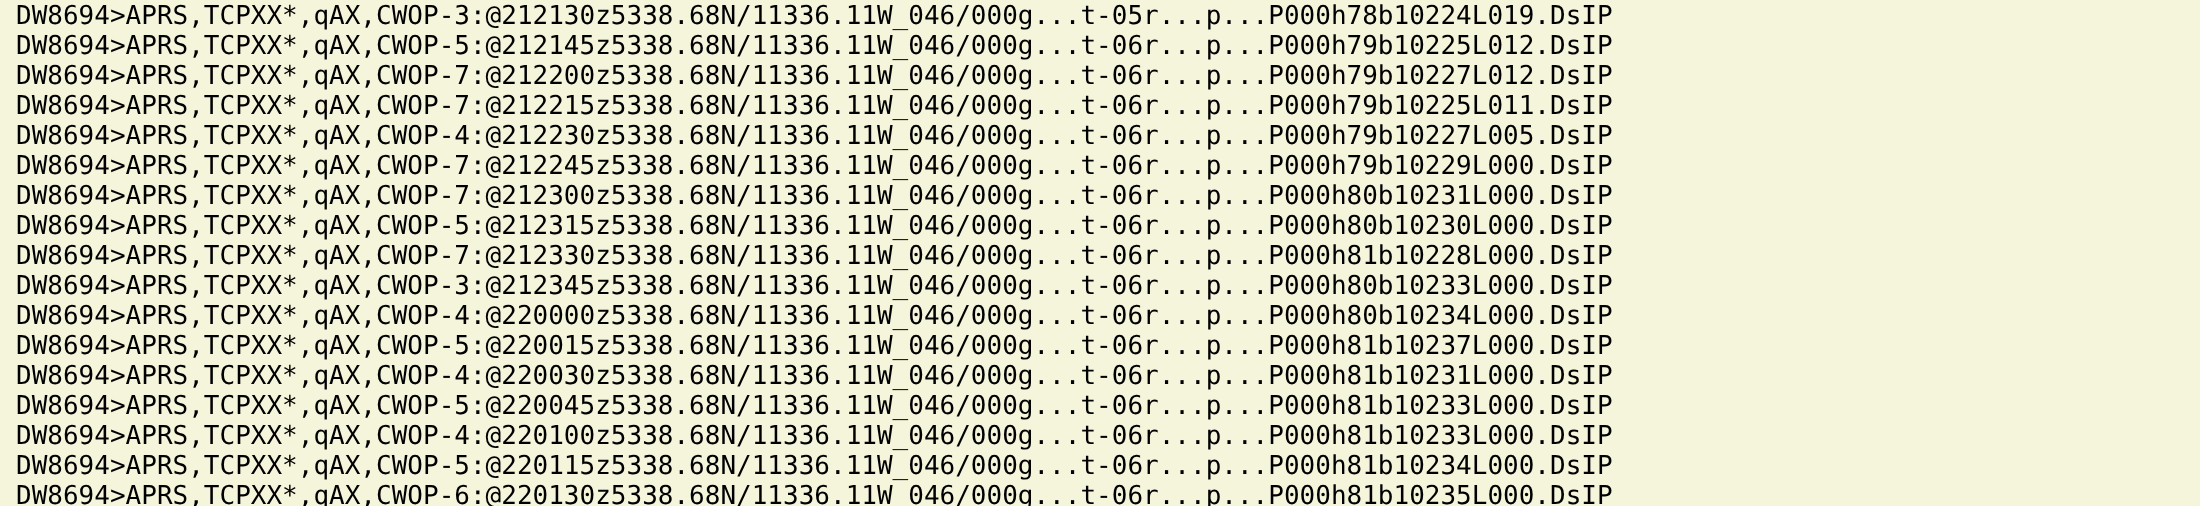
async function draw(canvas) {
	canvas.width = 2200;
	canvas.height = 506;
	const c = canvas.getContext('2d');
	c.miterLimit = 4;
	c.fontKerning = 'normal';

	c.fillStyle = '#f5f5dc';
	c.fillRect(0, 0, 2200, 506);
	c.font = '26px DejaVu Sans Mono';
	c.fillStyle = '#000';
	for (const [text, x, y] of [
		['DW8694>APRS,TCPXX*,qAX,CWOP-3:@212130z5338.68N/11336.11W_046/000g...t-05r...p...P000h78b10224L019.DsIP', 16, 24],
		['DW8694>APRS,TCPXX*,qAX,CWOP-5:@212145z5338.68N/11336.11W_046/000g...t-06r...p...P000h79b10225L012.DsIP', 16, 54],
		['DW8694>APRS,TCPXX*,qAX,CWOP-7:@212200z5338.68N/11336.11W_046/000g...t-06r...p...P000h79b10227L012.DsIP', 16, 84],
		['DW8694>APRS,TCPXX*,qAX,CWOP-7:@212215z5338.68N/11336.11W_046/000g...t-06r...p...P000h79b10225L011.DsIP', 16, 114],
		['DW8694>APRS,TCPXX*,qAX,CWOP-4:@212230z5338.68N/11336.11W_046/000g...t-06r...p...P000h79b10227L005.DsIP', 16, 144],
		['DW8694>APRS,TCPXX*,qAX,CWOP-7:@212245z5338.68N/11336.11W_046/000g...t-06r...p...P000h79b10229L000.DsIP', 16, 174],
		['DW8694>APRS,TCPXX*,qAX,CWOP-7:@212300z5338.68N/11336.11W_046/000g...t-06r...p...P000h80b10231L000.DsIP', 16, 204],
		['DW8694>APRS,TCPXX*,qAX,CWOP-5:@212315z5338.68N/11336.11W_046/000g...t-06r...p...P000h80b10230L000.DsIP', 16, 234],
		['DW8694>APRS,TCPXX*,qAX,CWOP-7:@212330z5338.68N/11336.11W_046/000g...t-06r...p...P000h81b10228L000.DsIP', 16, 264],
		['DW8694>APRS,TCPXX*,qAX,CWOP-3:@212345z5338.68N/11336.11W_046/000g...t-06r...p...P000h80b10233L000.DsIP', 16, 294],
		['DW8694>APRS,TCPXX*,qAX,CWOP-4:@220000z5338.68N/11336.11W_046/000g...t-06r...p...P000h80b10234L000.DsIP', 16, 324],
		['DW8694>APRS,TCPXX*,qAX,CWOP-5:@220015z5338.68N/11336.11W_046/000g...t-06r...p...P000h81b10237L000.DsIP', 16, 354],
		['DW8694>APRS,TCPXX*,qAX,CWOP-4:@220030z5338.68N/11336.11W_046/000g...t-06r...p...P000h81b10231L000.DsIP', 16, 384],
		['DW8694>APRS,TCPXX*,qAX,CWOP-5:@220045z5338.68N/11336.11W_046/000g...t-06r...p...P000h81b10233L000.DsIP', 16, 414],
		['DW8694>APRS,TCPXX*,qAX,CWOP-4:@220100z5338.68N/11336.11W_046/000g...t-06r...p...P000h81b10233L000.DsIP', 16, 444],
		['DW8694>APRS,TCPXX*,qAX,CWOP-5:@220115z5338.68N/11336.11W_046/000g...t-06r...p...P000h81b10234L000.DsIP', 16, 474],
		['DW8694>APRS,TCPXX*,qAX,CWOP-6:@220130z5338.68N/11336.11W_046/000g...t-06r...p...P000h81b10235L000.DsIP', 16, 504],
	]) {
		c.fillText(text, x, y);
	}
}

draw(document.querySelector('canvas'));
